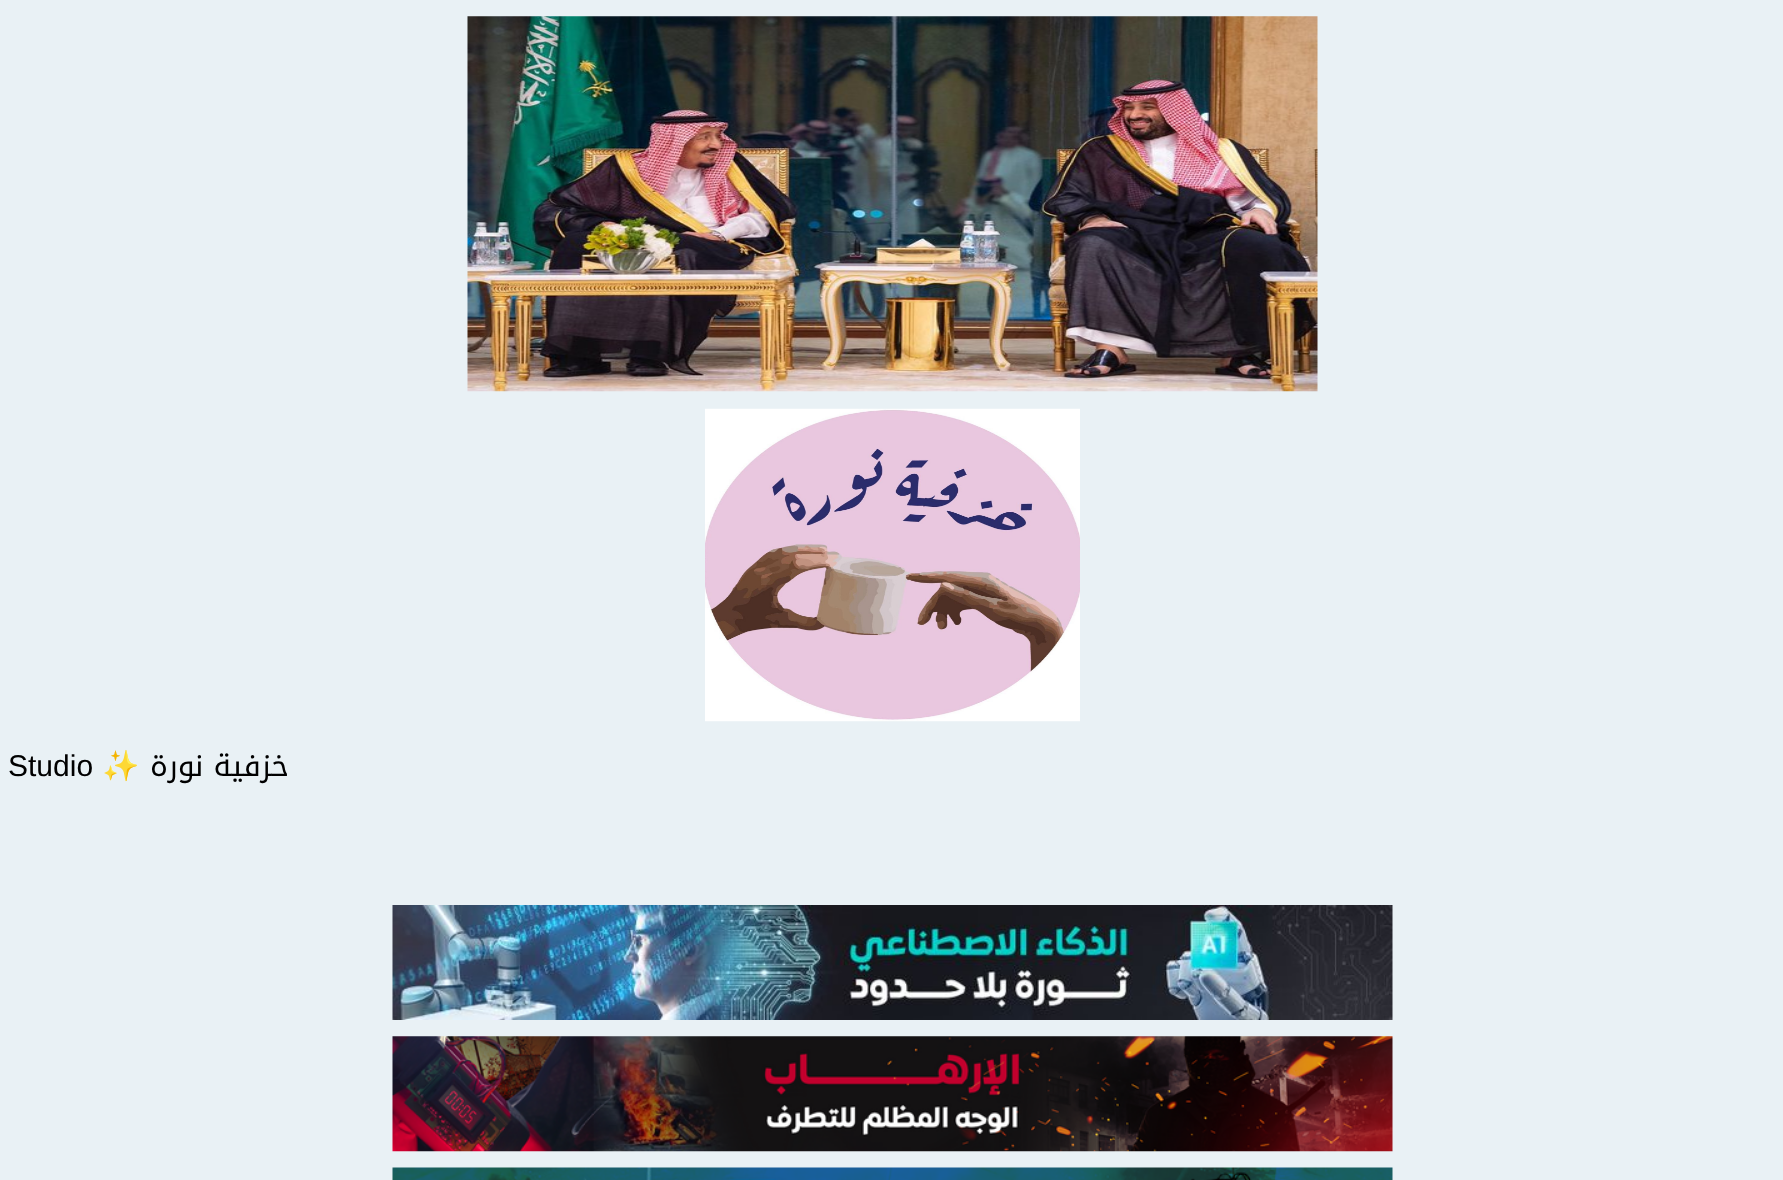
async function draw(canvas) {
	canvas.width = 1783;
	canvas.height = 1180;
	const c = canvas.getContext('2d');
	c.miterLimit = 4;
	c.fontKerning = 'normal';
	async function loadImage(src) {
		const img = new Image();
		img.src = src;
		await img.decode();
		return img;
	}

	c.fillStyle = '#e9f1f5';
	c.fillRect(0, 0, 1783, 1180);
	c.drawImage(await loadImage('img1.png'), 467, 16, 851, 376);
	c.drawImage(await loadImage('img2.png'), 705, 408, 375, 314);
	c.direction = 'rtl';
	c.font = '30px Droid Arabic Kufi';
	c.fillStyle = '#000';
	c.fillText('خزفية نورة', 289, 776);
	c.font = '30px Noto Color Emoji';
	c.fillText('✨', 140, 776);
	c.wordSpacing = '2px';
	c.direction = 'ltr';
	c.font = '30px Liberation Sans';
	c.fillText('Studio', 8, 776);
	c.drawImage(await loadImage('img3.png'), 392, 905, 1001, 115);
	c.drawImage(await loadImage('img4.png'), 392, 1036, 1001, 116);
	c.drawImage(await loadImage('img5.png'), 392, 1167, 1001, 13);
}

draw(document.querySelector('canvas'));
